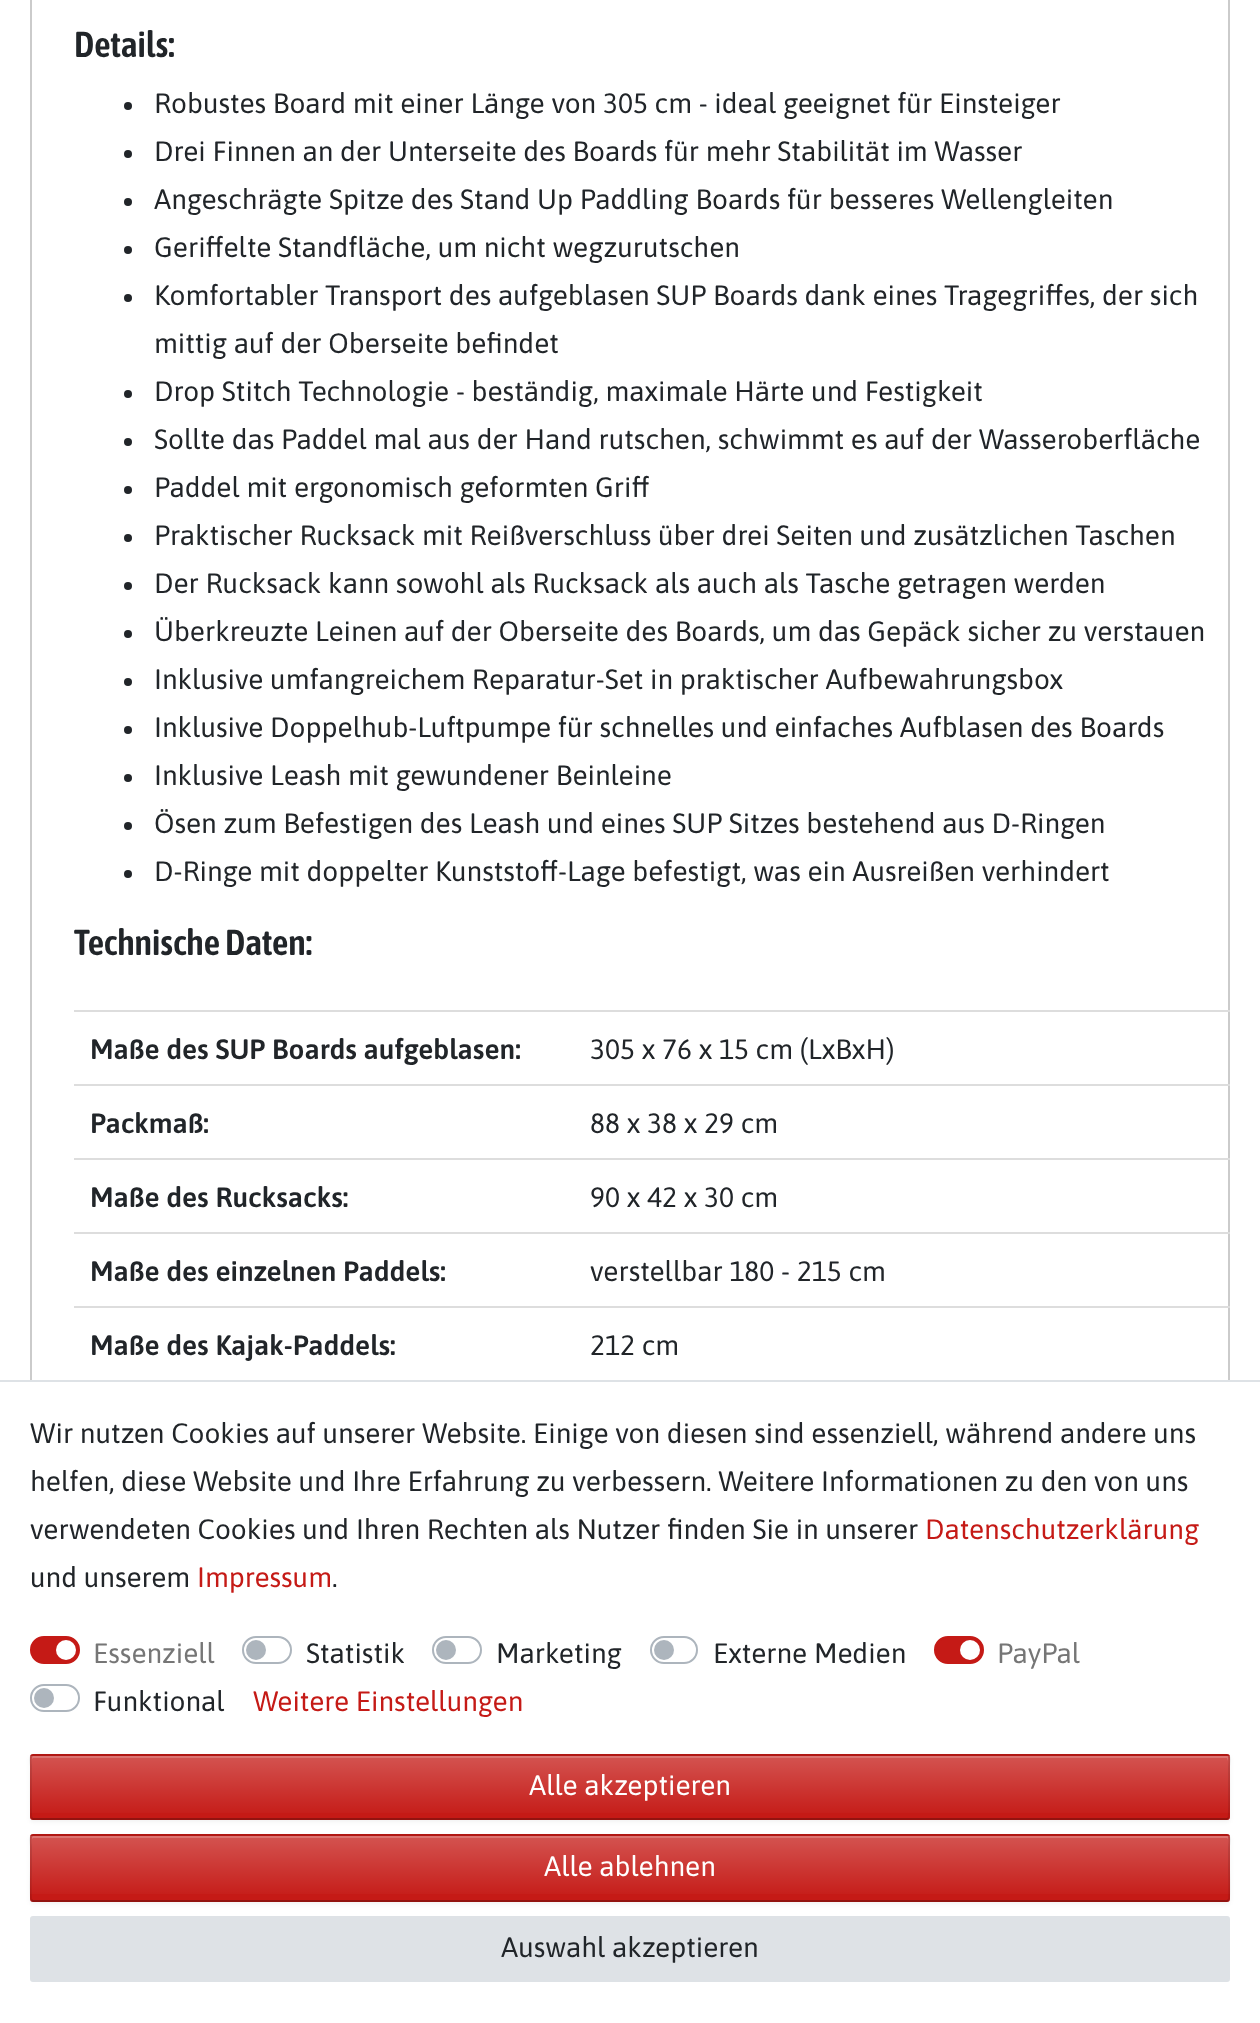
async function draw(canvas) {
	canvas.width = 1260;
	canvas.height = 2023;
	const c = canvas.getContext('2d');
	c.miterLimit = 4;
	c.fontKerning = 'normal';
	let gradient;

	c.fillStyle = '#fff';
	c.fillRect(0, 0, 1260, 2023);
	c.strokeStyle = '#cbcbcb';
	c.lineWidth = 2;
	c.strokeRect(31, -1, 1198, 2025);
	c.font = '600 36px Asap Condensed';
	c.fillStyle = '#212529';
	c.fillText('Details:', 74, 57);
	c.beginPath();
	c.arc(128, 106, 4, 0, 2 * Math.PI);
	c.fill();
	c.font = '28px Asap';
	c.fillText('Robustes Board mit einer Länge von 305 cm - ideal geeignet für Einsteiger', 154, 113);
	c.beginPath();
	c.arc(128, 154, 4, 0, 2 * Math.PI);
	c.fill();
	c.fillText('Drei Finnen an der Unterseite des Boards für mehr Stabilität im Wasser', 154, 161);
	c.beginPath();
	c.arc(128, 202, 4, 0, 2 * Math.PI);
	c.fill();
	c.fillText('Angeschrägte Spitze des Stand Up Paddling Boards für besseres Wellengleiten', 154, 209);
	c.beginPath();
	c.arc(128, 250, 4, 0, 2 * Math.PI);
	c.fill();
	c.fillText('Geriffelte Standfläche, um nicht wegzurutschen', 154, 257);
	c.beginPath();
	c.arc(128, 298, 4, 0, 2 * Math.PI);
	c.fill();
	c.fillText('Komfortabler Transport des aufgeblasen SUP Boards dank eines Tragegriffes, der sich', 154, 305);
	c.fillText('mittig auf der Oberseite befindet', 154, 353);
	c.beginPath();
	c.arc(128, 394, 4, 0, 2 * Math.PI);
	c.fill();
	c.fillText('Drop Stitch Technologie - beständig, maximale Härte und Festigkeit', 154, 401);
	c.beginPath();
	c.arc(128, 442, 4, 0, 2 * Math.PI);
	c.fill();
	c.fillText('Sollte das Paddel mal aus der Hand rutschen, schwimmt es auf der Wasseroberfläche', 154, 449);
	c.beginPath();
	c.arc(128, 490, 4, 0, 2 * Math.PI);
	c.fill();
	c.fillText('Paddel mit ergonomisch geformten Griff', 154, 497);
	c.beginPath();
	c.arc(128, 538, 4, 0, 2 * Math.PI);
	c.fill();
	c.fillText('Praktischer Rucksack mit Reißverschluss über drei Seiten und zusätzlichen Taschen', 154, 545);
	c.beginPath();
	c.arc(128, 586, 4, 0, 2 * Math.PI);
	c.fill();
	c.fillText('Der Rucksack kann sowohl als Rucksack als auch als Tasche getragen werden', 154, 593);
	c.beginPath();
	c.arc(128, 634, 4, 0, 2 * Math.PI);
	c.fill();
	c.fillText('Überkreuzte Leinen auf der Oberseite des Boards, um das Gepäck sicher zu verstauen', 154, 641);
	c.beginPath();
	c.arc(128, 682, 4, 0, 2 * Math.PI);
	c.fill();
	c.fillText('Inklusive umfangreichem Reparatur-Set in praktischer Aufbewahrungsbox', 154, 689);
	c.beginPath();
	c.arc(128, 730, 4, 0, 2 * Math.PI);
	c.fill();
	c.fillText('Inklusive Doppelhub-Luftpumpe für schnelles und einfaches Aufblasen des Boards', 154, 737);
	c.beginPath();
	c.arc(128, 778, 4, 0, 2 * Math.PI);
	c.fill();
	c.fillText('Inklusive Leash mit gewundener Beinleine', 154, 785);
	c.beginPath();
	c.arc(128, 826, 4, 0, 2 * Math.PI);
	c.fill();
	c.fillText('Ösen zum Befestigen des Leash und eines SUP Sitzes bestehend aus D-Ringen', 154, 833);
	c.beginPath();
	c.arc(128, 874, 4, 0, 2 * Math.PI);
	c.fill();
	c.fillText('D-Ringe mit doppelter Kunststoff-Lage befestigt, was ein Ausreißen verhindert', 154, 881);
	c.font = '600 36px Asap Condensed';
	c.fillText('Technische Daten:', 74, 955);
	c.font = '600 28px Asap';
	c.fillText('Maße des SUP Boards aufgeblasen:', 90, 1059);
	c.fillStyle = '#ddd';
	c.fillRect(74, 1010, 1156, 2);
	c.font = '28px Asap';
	c.fillStyle = '#212529';
	c.fillText('305 x 76 x 15 cm (LxBxH)', 590, 1059);
	c.font = '600 28px Asap';
	c.fillText('Packmaß:', 90, 1133);
	c.fillStyle = '#ddd';
	c.fillRect(74, 1084, 1156, 2);
	c.font = '28px Asap';
	c.fillStyle = '#212529';
	c.fillText('88 x 38 x 29 cm', 590, 1133);
	c.font = '600 28px Asap';
	c.fillText('Maße des Rucksacks:', 90, 1207);
	c.fillStyle = '#ddd';
	c.fillRect(74, 1158, 1156, 2);
	c.font = '28px Asap';
	c.fillStyle = '#212529';
	c.fillText('90 x 42 x 30 cm', 590, 1207);
	c.font = '600 28px Asap';
	c.fillText('Maße des einzelnen Paddels:', 90, 1281);
	c.fillStyle = '#ddd';
	c.fillRect(74, 1232, 1156, 2);
	c.font = '28px Asap';
	c.fillStyle = '#212529';
	c.fillText('verstellbar 180 - 215 cm', 590, 1281);
	c.font = '600 28px Asap';
	c.fillText('Maße des Kajak-Paddels:', 90, 1355);
	c.fillStyle = '#ddd';
	c.fillRect(74, 1306, 1156, 2);
	c.font = '28px Asap';
	c.fillStyle = '#212529';
	c.fillText('212 cm', 590, 1355);
	c.fillStyle = '#fff';
	c.fillRect(30, 1382, 1200, 641);
	c.fillStyle = '#dee2e6';
	c.fillRect(0, 1380, 1260, 2);
	c.fillStyle = '#212529';
	for (const [text, x, y] of [
		['Wir nutzen Cookies auf unserer Website. Einige von diesen sind essenziell, während andere uns', 30, 1443],
		['helfen, diese Website und Ihre Erfahrung zu verbessern. Weitere Informationen zu den von uns', 30, 1491],
		['verwendeten Cookies und Ihren Rechten als Nutzer finden Sie in unserer', 30, 1539],
	]) {
		c.fillText(text, x, y);
	}
	c.fillStyle = '#c51a16';
	c.fillText('Datenschutzerklärung', 925, 1539);
	c.fillStyle = '#212529';
	c.fillText('und unserem', 30, 1587);
	c.fillStyle = '#c51a16';
	c.fillText('Impressum', 197, 1587);
	c.fillStyle = '#212529';
	c.fillText('.', 332, 1587);
	c.fillStyle = '#c51a16';
	c.beginPath();
	c.roundRect(31, 1637, 48, 26, 13);
	c.fill();
	c.strokeStyle = '#c51a16';
	c.stroke();
	c.fillStyle = '#fff';
	c.beginPath();
	c.arc(66, 1650, 10, 0, 2 * Math.PI);
	c.fill();
	c.fillStyle = '#767676';
	c.fillText('Essenziell', 93, 1663);
	c.beginPath();
	c.roundRect(243, 1637, 48, 26, 13);
	c.strokeStyle = '#adb5bd';
	c.stroke();
	c.fillStyle = '#adb5bd';
	c.beginPath();
	c.arc(256, 1650, 10, 0, 2 * Math.PI);
	c.fill();
	c.fillStyle = '#212529';
	c.fillText('Statistik', 306, 1663);
	c.beginPath();
	c.roundRect(433, 1637, 48, 26, 13);
	c.stroke();
	c.fillStyle = '#adb5bd';
	c.beginPath();
	c.arc(446, 1650, 10, 0, 2 * Math.PI);
	c.fill();
	c.fillStyle = '#212529';
	c.fillText('Marketing', 496, 1663);
	c.beginPath();
	c.roundRect(651, 1637, 46, 26, 13);
	c.stroke();
	c.fillStyle = '#adb5bd';
	c.beginPath();
	c.arc(664, 1650, 10, 0, 2 * Math.PI);
	c.fill();
	c.fillStyle = '#212529';
	c.fillText('Externe Medien', 713, 1663);
	c.fillStyle = '#c51a16';
	c.beginPath();
	c.roundRect(935, 1637, 48, 26, 13);
	c.fill();
	c.strokeStyle = '#c51a16';
	c.stroke();
	c.fillStyle = '#fff';
	c.beginPath();
	c.arc(970, 1650, 10, 0, 2 * Math.PI);
	c.fill();
	c.fillStyle = '#767676';
	c.fillText('PayPal', 997, 1663);
	c.beginPath();
	c.roundRect(31, 1685, 48, 26, 13);
	c.strokeStyle = '#adb5bd';
	c.stroke();
	c.fillStyle = '#adb5bd';
	c.beginPath();
	c.arc(44, 1698, 10, 0, 2 * Math.PI);
	c.fill();
	c.fillStyle = '#212529';
	c.fillText('Funktional', 93, 1711);
	c.fillStyle = '#c51a16';
	c.fillText('Weitere Einstellungen', 253, 1711);
	c.fillStyle = '#0000000d';
	c.filter = 'blur(2px)';
	c.beginPath();
	c.roundRect(30, 1756, 1200, 66, 3);
	c.fill();
	c.filter = 'none';
	c.fillStyle = '#c51a16';
	c.beginPath();
	c.roundRect(30, 1754, 1200, 66, 3);
	c.fill();
	gradient = c.createLinearGradient(630, 1756, 630, 1818);
	gradient.addColorStop(0, '#ffffff40');
	gradient.addColorStop(1, '#ffffff00');
	c.fillStyle = gradient;
	c.fillRect(30, 1756, 1200, 57);
	c.fillStyle = '#ffffff33';
	c.beginPath();
	c.moveTo(33, 1758);
	c.lineTo(1227, 1758);
	c.lineTo(1228, 1761);
	c.lineTo(1228, 1756);
	c.lineTo(33, 1756);
	c.bezierCurveTo(32, 1756, 32, 1758, 32, 1759);
	c.closePath();
	c.fill();
	c.beginPath();
	c.moveTo(1228.5, 1818.5);
	c.lineTo(1227, 1819);
	c.lineTo(33, 1819);
	c.lineTo(31.5, 1818.5);
	c.strokeStyle = '#00000040';
	c.stroke();
	c.beginPath();
	c.moveTo(31.5, 1818.5);
	c.bezierCurveTo(30.5, 1817, 31, 1772.5, 31, 1767);
	c.bezierCurveTo(31, 1763, 29, 1755, 33, 1755);
	c.lineTo(1227, 1755);
	c.bezierCurveTo(1231, 1755, 1229, 1763, 1229, 1767);
	c.bezierCurveTo(1229, 1772.5, 1229.5, 1817, 1228.5, 1818.5);
	c.strokeStyle = '#0000001a';
	c.stroke();
	c.fillStyle = '#fff';
	c.fillText('Alle akzeptieren', 529, 1795);
	c.fillStyle = '#0000000d';
	c.filter = 'blur(2px)';
	c.beginPath();
	c.roundRect(30, 1836, 1200, 68, 3);
	c.fill();
	c.filter = 'none';
	c.fillStyle = '#c51a16';
	c.beginPath();
	c.roundRect(30, 1834, 1200, 68, 3);
	c.fill();
	gradient = c.createLinearGradient(630, 1836, 630, 1900);
	gradient.addColorStop(0, '#ffffff40');
	gradient.addColorStop(1, '#ffffff00');
	c.fillStyle = gradient;
	c.fillRect(30, 1836, 1200, 58);
	c.fillStyle = '#dc7572';
	c.beginPath();
	c.moveTo(33, 1838);
	c.lineTo(1227, 1838);
	c.lineTo(1228, 1839);
	c.lineTo(1228, 1836);
	c.lineTo(1227, 1836);
	c.lineTo(33, 1836);
	c.lineTo(32, 1837);
	c.lineTo(32, 1839);
	c.closePath();
	c.fill();
	c.beginPath();
	c.moveTo(1228.5, 1900.5);
	c.lineTo(1227, 1901);
	c.lineTo(33, 1901);
	c.lineTo(31.5, 1900.5);
	c.strokeStyle = '#00000040';
	c.stroke();
	c.beginPath();
	c.moveTo(31.5, 1900.5);
	c.bezierCurveTo(30, 1899, 31, 1872, 31, 1868);
	c.lineTo(31, 1847);
	c.bezierCurveTo(31, 1843.5, 29, 1835, 33, 1835);
	c.lineTo(1227, 1835);
	c.bezierCurveTo(1231, 1835, 1229, 1843.5, 1229, 1847);
	c.lineTo(1229, 1868);
	c.bezierCurveTo(1229, 1872, 1230, 1899, 1228.5, 1900.5);
	c.strokeStyle = '#0000001a';
	c.stroke();
	c.fillStyle = '#fff';
	c.fillText('Alle ablehnen', 544, 1876);
	c.fillStyle = '#dee2e6';
	c.beginPath();
	c.roundRect(31, 1917, 1198, 64, 2);
	c.fill();
	c.strokeStyle = '#dee2e6';
	c.stroke();
	c.fillStyle = '#212529';
	c.fillText('Auswahl akzeptieren', 501, 1957);
}

draw(document.querySelector('canvas'));
